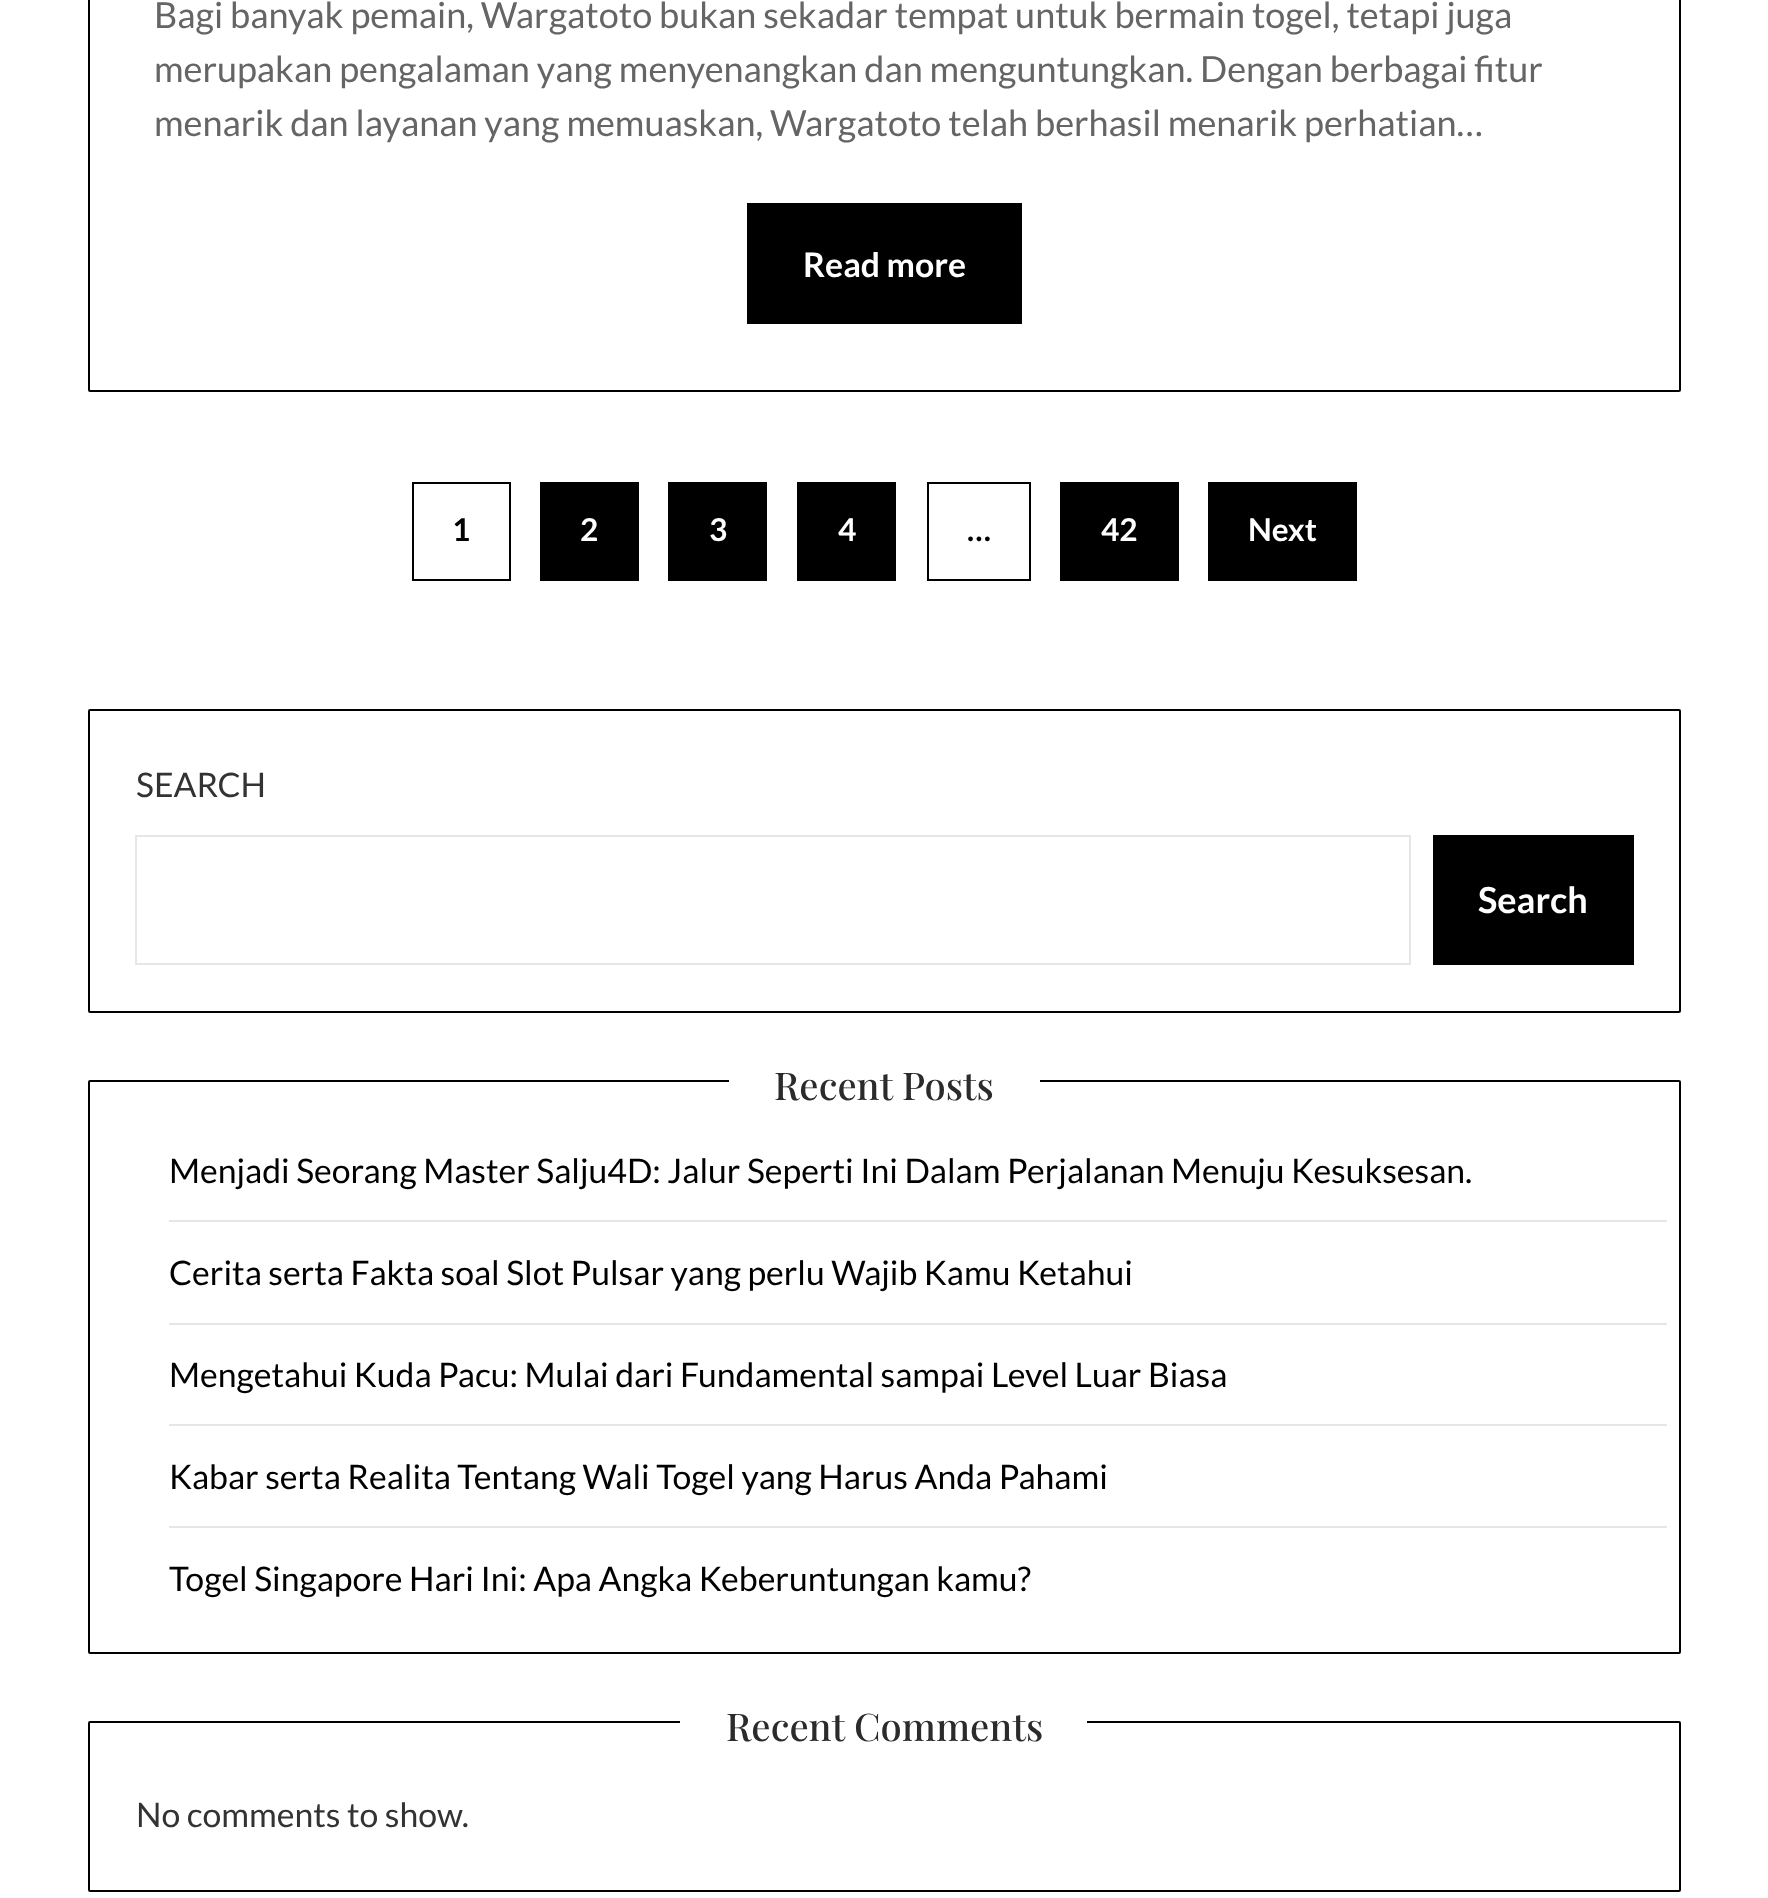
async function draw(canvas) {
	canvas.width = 1768;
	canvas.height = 1898;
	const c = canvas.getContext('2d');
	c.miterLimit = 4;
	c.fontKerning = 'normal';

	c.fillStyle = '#fff';
	c.fillRect(0, 0, 1768, 1898);
	c.beginPath();
	c.roundRect(89, -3, 1591, 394, 1);
	c.strokeStyle = '#000';
	c.lineWidth = 2;
	c.stroke();
	c.font = '36px Lato';
	c.fillStyle = '#656565';
	for (const [text, x, y] of [
		['Bagi banyak pemain, Wargatoto bukan sekadar tempat untuk bermain togel, tetapi juga', 154, 28],
		['merupakan pengalaman yang menyenangkan dan menguntungkan. Dengan berbagai fitur', 154, 82],
		['menarik dan layanan yang memuaskan, Wargatoto telah berhasil menarik perhatian…', 154, 136],
	]) {
		c.fillText(text, x, y);
	}
	c.fillStyle = '#000';
	c.fillRect(747, 203, 275, 121);
	c.font = 'bold 33.75px Lato';
	c.fillStyle = '#fff';
	c.fillText('Read more', 803, 277);
	c.strokeRect(413, 483, 97, 97);
	c.font = 'bold 31.5px Lato';
	c.fillStyle = '#000';
	c.fillText('1', 452, 541);
	c.fillRect(540, 482, 99, 99);
	c.fillStyle = '#fff';
	c.fillText('2', 580, 541);
	c.fillStyle = '#000';
	c.fillRect(668, 482, 99, 99);
	c.fillStyle = '#fff';
	c.fillText('3', 709, 541);
	c.fillStyle = '#000';
	c.fillRect(797, 482, 99, 99);
	c.fillStyle = '#fff';
	c.fillText('4', 838, 541);
	c.strokeRect(928, 483, 102, 97);
	c.fillStyle = '#000';
	c.fillText('…', 967, 541);
	c.fillRect(1060, 482, 119, 99);
	c.fillStyle = '#fff';
	c.fillText('42', 1101, 541);
	c.fillStyle = '#000';
	c.fillRect(1208, 482, 149, 99);
	c.fillStyle = '#fff';
	c.fillText('Next', 1248, 541);
	c.beginPath();
	c.roundRect(89, 710, 1591, 302, 1);
	c.stroke();
	c.font = '33.75px Lato';
	c.fillStyle = '#333';
	c.fillText('SEARCH', 136, 797);
	c.strokeStyle = '#e5e6e9';
	c.strokeRect(136, 836, 1274, 128);
	c.fillStyle = '#000';
	c.fillRect(1433, 835, 201, 130);
	c.font = 'bold 36px Lato';
	c.fillStyle = '#fff';
	c.fillText('Search', 1478, 913);
	c.beginPath();
	c.roundRect(89, 1081, 1591, 572, 1);
	c.strokeStyle = '#000';
	c.stroke();
	c.fillRect(729, 1080, 311, 2);
	c.font = '500 38.25px Playfair Display';
	c.fillStyle = '#2b2b2b';
	c.fillText('Recent Posts', 774, 1100);
	c.fillStyle = '#e6e6e6';
	c.fillRect(169, 1220, 1498, 2);
	c.font = '33.75px Lato';
	c.fillStyle = '#000';
	c.fillText('Menjadi Seorang Master Salju4D: Jalur Seperti Ini Dalam Perjalanan Menuju Kesuksesan.', 169, 1183);
	c.fillStyle = '#e6e6e6';
	c.fillRect(169, 1323, 1498, 2);
	c.fillStyle = '#000';
	c.fillText('Cerita serta Fakta soal Slot Pulsar yang perlu Wajib Kamu Ketahui', 169, 1285);
	c.fillStyle = '#e6e6e6';
	c.fillRect(169, 1424, 1498, 2);
	c.fillStyle = '#000';
	c.fillText('Mengetahui Kuda Pacu: Mulai dari Fundamental sampai Level Luar Biasa', 169, 1387);
	c.fillStyle = '#e6e6e6';
	c.fillRect(169, 1526, 1498, 2);
	c.fillStyle = '#000';
	c.fillText('Kabar serta Realita Tentang Wali Togel yang Harus Anda Pahami', 169, 1489);
	c.fillText('Togel Singapore Hari Ini: Apa Angka Keberuntungan kamu?', 169, 1591);
	c.beginPath();
	c.roundRect(89, 1722, 1591, 169, 1);
	c.stroke();
	c.fillStyle = '#fff';
	c.fillRect(680, 1721, 407, 2);
	c.font = '500 38.25px Playfair Display';
	c.fillStyle = '#2b2b2b';
	c.fillText('Recent Comments', 726, 1741);
	c.font = '33.75px Lato';
	c.fillStyle = '#333';
	c.fillText('No comments to show.', 136, 1827);
}

draw(document.querySelector('canvas'));
